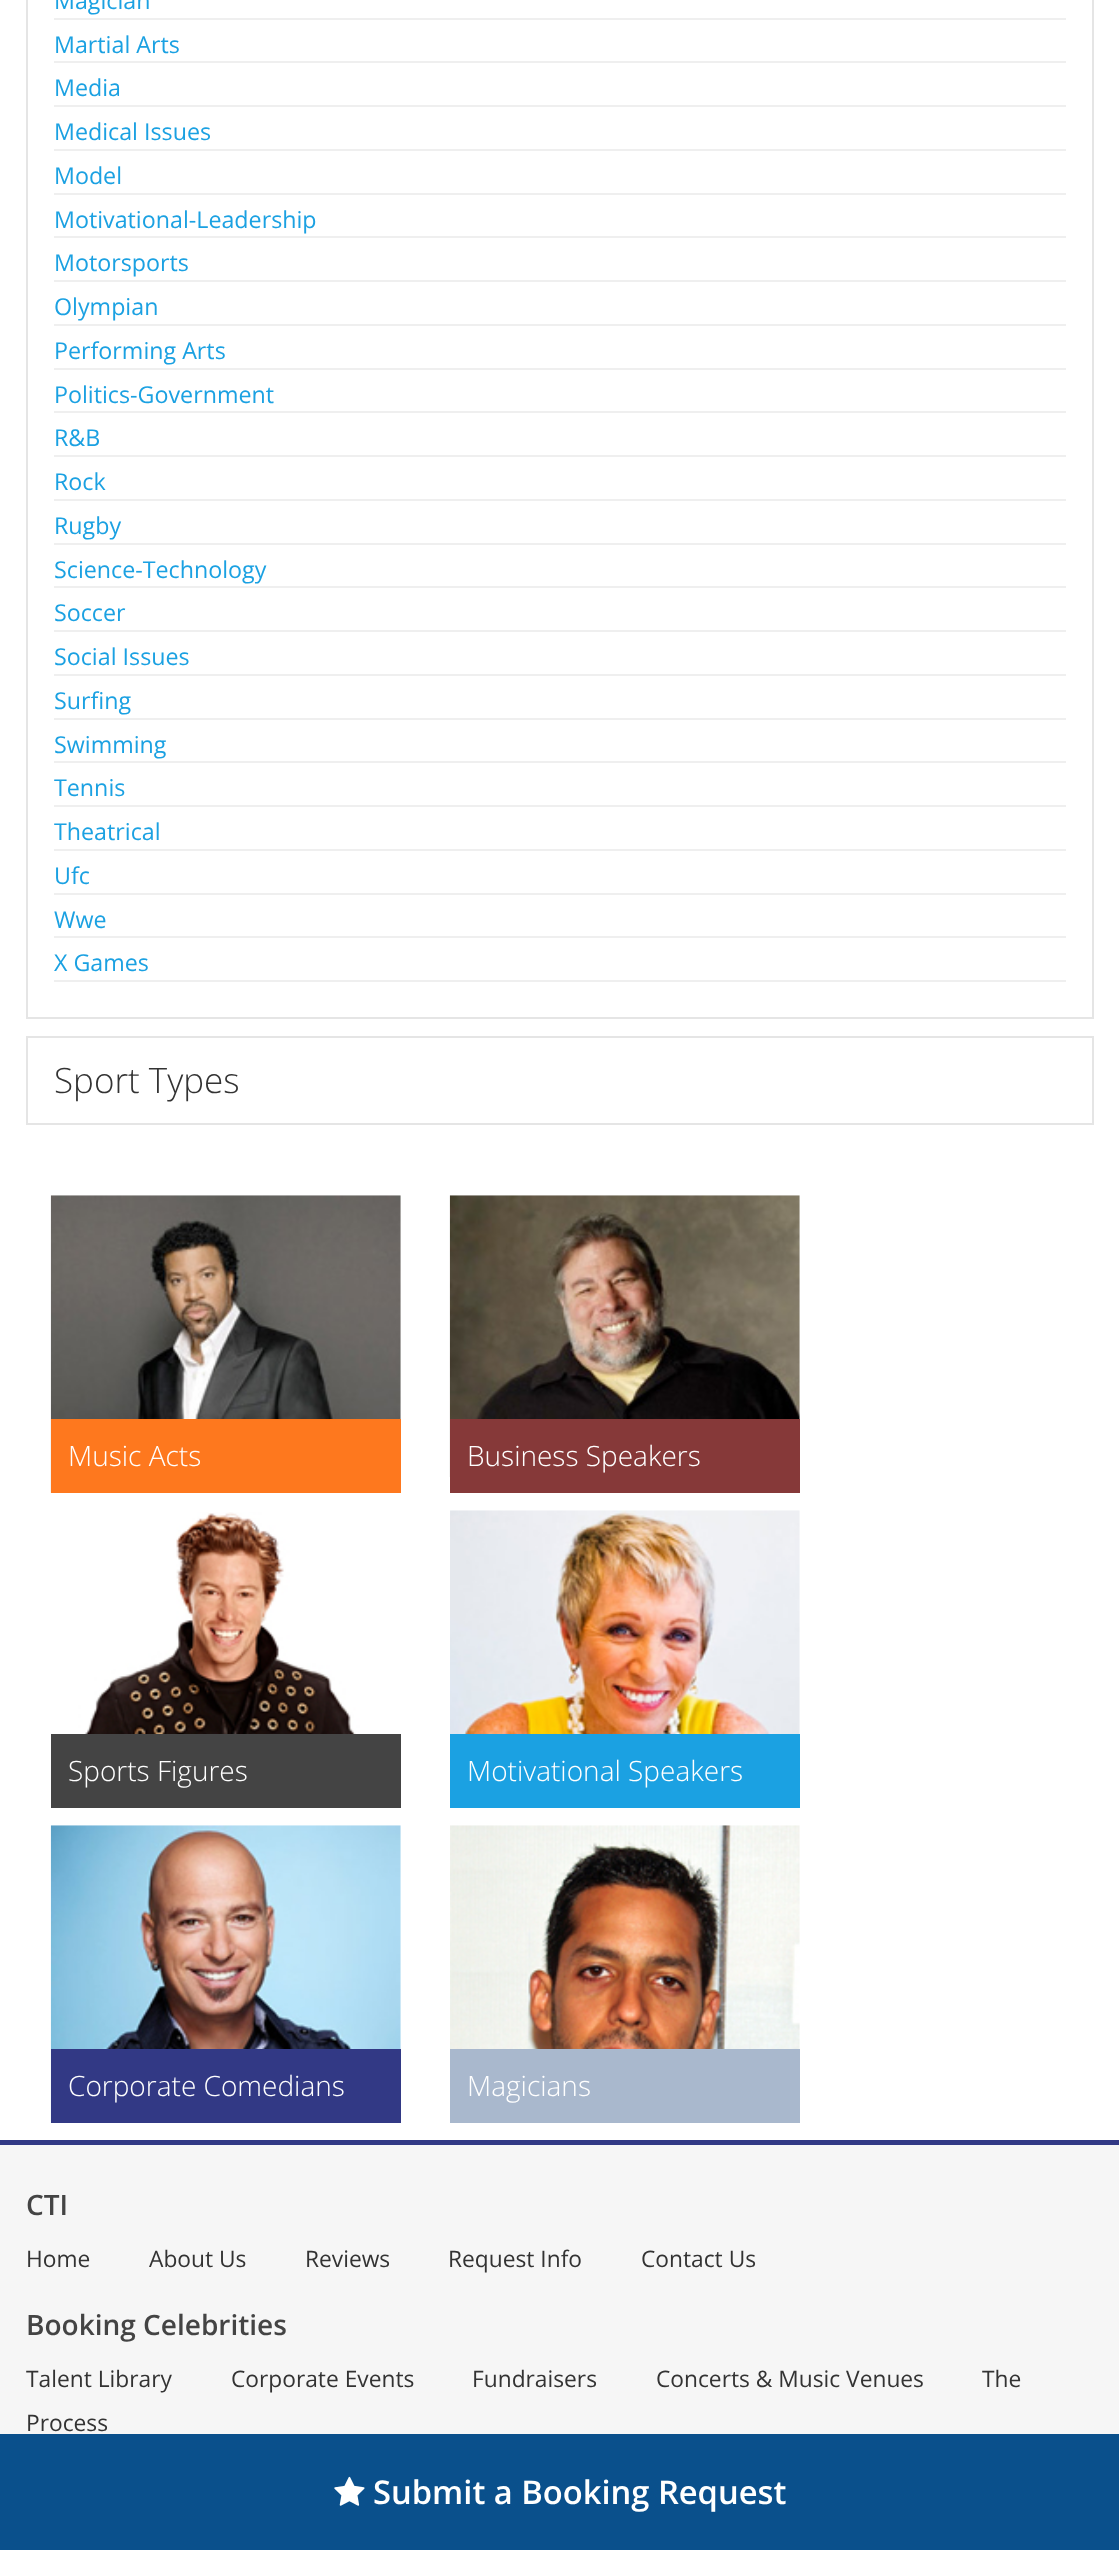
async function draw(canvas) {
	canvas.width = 1119;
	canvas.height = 2550;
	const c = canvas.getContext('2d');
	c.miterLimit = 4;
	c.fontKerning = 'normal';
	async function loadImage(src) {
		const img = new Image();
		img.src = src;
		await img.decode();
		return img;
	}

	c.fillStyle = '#fff';
	c.fillRect(0, 0, 1119, 2550);
	c.strokeStyle = '#e5e5e5';
	c.lineWidth = 2;
	c.strokeRect(27, -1, 1066, 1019);
	c.fillStyle = '#efefef';
	c.fillRect(54, 18, 1012, 2);
	c.font = '23.25px Open Sans';
	c.fillStyle = '#1ba1e2';
	c.fillText('Magician', 54, 9);
	c.fillStyle = '#efefef';
	c.fillRect(54, 61, 1012, 2);
	c.fillStyle = '#1ba1e2';
	c.fillText('Martial Arts', 54, 53);
	c.fillStyle = '#efefef';
	c.fillRect(54, 105, 1012, 2);
	c.fillStyle = '#1ba1e2';
	c.fillText('Media', 54, 96);
	c.fillStyle = '#efefef';
	c.fillRect(54, 149, 1012, 2);
	c.fillStyle = '#1ba1e2';
	c.fillText('Medical Issues', 54, 140);
	c.fillStyle = '#efefef';
	c.fillRect(54, 193, 1012, 2);
	c.fillStyle = '#1ba1e2';
	c.fillText('Model', 54, 184);
	c.fillStyle = '#efefef';
	c.fillRect(54, 236, 1012, 2);
	c.fillStyle = '#1ba1e2';
	c.fillText('Motivational-Leadership', 54, 228);
	c.fillStyle = '#efefef';
	c.fillRect(54, 280, 1012, 2);
	c.fillStyle = '#1ba1e2';
	c.fillText('Motorsports', 54, 271);
	c.fillStyle = '#efefef';
	c.fillRect(54, 324, 1012, 2);
	c.fillStyle = '#1ba1e2';
	c.fillText('Olympian', 54, 315);
	c.fillStyle = '#efefef';
	c.fillRect(54, 368, 1012, 2);
	c.fillStyle = '#1ba1e2';
	c.fillText('Performing Arts', 54, 359);
	c.fillStyle = '#efefef';
	c.fillRect(54, 411, 1012, 2);
	c.fillStyle = '#1ba1e2';
	c.fillText('Politics-Government', 54, 403);
	c.fillStyle = '#efefef';
	c.fillRect(54, 455, 1012, 2);
	c.fillStyle = '#1ba1e2';
	c.fillText('R&B', 54, 446);
	c.fillStyle = '#efefef';
	c.fillRect(54, 499, 1012, 2);
	c.fillStyle = '#1ba1e2';
	c.fillText('Rock', 54, 490);
	c.fillStyle = '#efefef';
	c.fillRect(54, 543, 1012, 2);
	c.fillStyle = '#1ba1e2';
	c.fillText('Rugby', 54, 534);
	c.fillStyle = '#efefef';
	c.fillRect(54, 586, 1012, 2);
	c.fillStyle = '#1ba1e2';
	c.fillText('Science-Technology', 54, 578);
	c.fillStyle = '#efefef';
	c.fillRect(54, 630, 1012, 2);
	c.fillStyle = '#1ba1e2';
	c.fillText('Soccer', 54, 621);
	c.fillStyle = '#efefef';
	c.fillRect(54, 674, 1012, 2);
	c.fillStyle = '#1ba1e2';
	c.fillText('Social Issues', 54, 665);
	c.fillStyle = '#efefef';
	c.fillRect(54, 718, 1012, 2);
	c.fillStyle = '#1ba1e2';
	c.fillText('Surfing', 54, 709);
	c.fillStyle = '#efefef';
	c.fillRect(54, 761, 1012, 2);
	c.fillStyle = '#1ba1e2';
	c.fillText('Swimming', 54, 753);
	c.fillStyle = '#efefef';
	c.fillRect(54, 805, 1012, 2);
	c.fillStyle = '#1ba1e2';
	c.fillText('Tennis', 54, 796);
	c.fillStyle = '#efefef';
	c.fillRect(54, 849, 1012, 2);
	c.fillStyle = '#1ba1e2';
	c.fillText('Theatrical', 54, 840);
	c.fillStyle = '#efefef';
	c.fillRect(54, 893, 1012, 2);
	c.fillStyle = '#1ba1e2';
	c.fillText('Ufc', 54, 884);
	c.fillStyle = '#efefef';
	c.fillRect(54, 936, 1012, 2);
	c.fillStyle = '#1ba1e2';
	c.fillText('Wwe', 54, 928);
	c.fillStyle = '#efefef';
	c.fillRect(54, 980, 1012, 2);
	c.fillStyle = '#1ba1e2';
	c.fillText('X Games', 54, 971);
	c.strokeRect(27, 1037, 1066, 87);
	c.font = '300 35px Open Sans';
	c.fillStyle = '#333';
	c.fillText('Sport Types', 54, 1093);
	c.drawImage(await loadImage('img1.png'), 50, 1195, 351, 298);
	c.fillStyle = '#fe781e';
	c.fillRect(51, 1419, 350, 74);
	c.font = '300 28px Open Sans';
	c.fillStyle = '#fff';
	c.fillText('Music Acts', 68, 1466);
	c.drawImage(await loadImage('img2.png'), 449, 1195, 351, 282);
	c.fillStyle = '#863939';
	c.fillRect(450, 1419, 350, 74);
	c.fillStyle = '#fff';
	c.fillText('Business Speakers', 467, 1466);
	c.drawImage(await loadImage('img3.png'), 59, 1512, 323, 222);
	c.fillStyle = '#444';
	c.fillRect(51, 1734, 350, 74);
	c.fillStyle = '#fff';
	c.fillText('Sports Figures', 68, 1781);
	c.drawImage(await loadImage('img4.png'), 450, 1510, 350, 224);
	c.fillStyle = '#1ba1e2';
	c.fillRect(450, 1734, 350, 74);
	c.fillStyle = '#fff';
	c.fillText('Motivational Speakers', 467, 1781);
	c.drawImage(await loadImage('img5.png'), 50, 1825, 351, 298);
	c.fillStyle = '#323985';
	c.fillRect(51, 2049, 350, 74);
	c.fillStyle = '#fff';
	c.fillText('Corporate Comedians', 68, 2096);
	c.drawImage(await loadImage('img6.png'), 450, 1825, 350, 224);
	c.fillStyle = '#a9b8cd';
	c.fillRect(450, 2049, 350, 74);
	c.fillStyle = '#fff';
	c.fillText('Magicians', 467, 2096);
	c.fillStyle = '#0a508c';
	c.fillRect(0, 2434, 1119, 116);
	c.drawImage(await loadImage('img7.png'), 334, 2476, 31, 30);
	c.font = '600 32.7px Open Sans';
	c.fillStyle = '#fff';
	c.fillText('Submit a Booking Request', 373, 2504);
	c.fillStyle = '#f6f6f6';
	c.fillRect(0, 2145, 1119, 289);
	c.fillStyle = '#323985';
	c.fillRect(0, 2140, 1119, 5);
	c.font = '600 28px Open Sans';
	c.fillStyle = '#444';
	c.fillText('CTI', 26, 2215);
	c.font = '22.75px Open Sans';
	c.fillStyle = '#333';
	for (const [text, x, y] of [
		['Home', 26, 2267],
		['About Us', 149, 2267],
		['Reviews', 305, 2267],
		['Request Info', 448, 2267],
		['Contact Us', 641, 2267],
	]) {
		c.fillText(text, x, y);
	}
	c.font = '600 28px Open Sans';
	c.fillStyle = '#444';
	c.fillText('Booking Celebrities', 26, 2335);
	c.font = '22.75px Open Sans';
	c.fillStyle = '#333';
	for (const [text, x, y] of [
		['Talent Library', 26, 2387],
		['Corporate Events', 231, 2387],
		['Fundraisers', 472, 2387],
		['Concerts & Music Venues', 656, 2387],
		['The', 982, 2387],
		['Process', 26, 2431],
	]) {
		c.fillText(text, x, y);
	}
}

draw(document.querySelector('canvas'));
